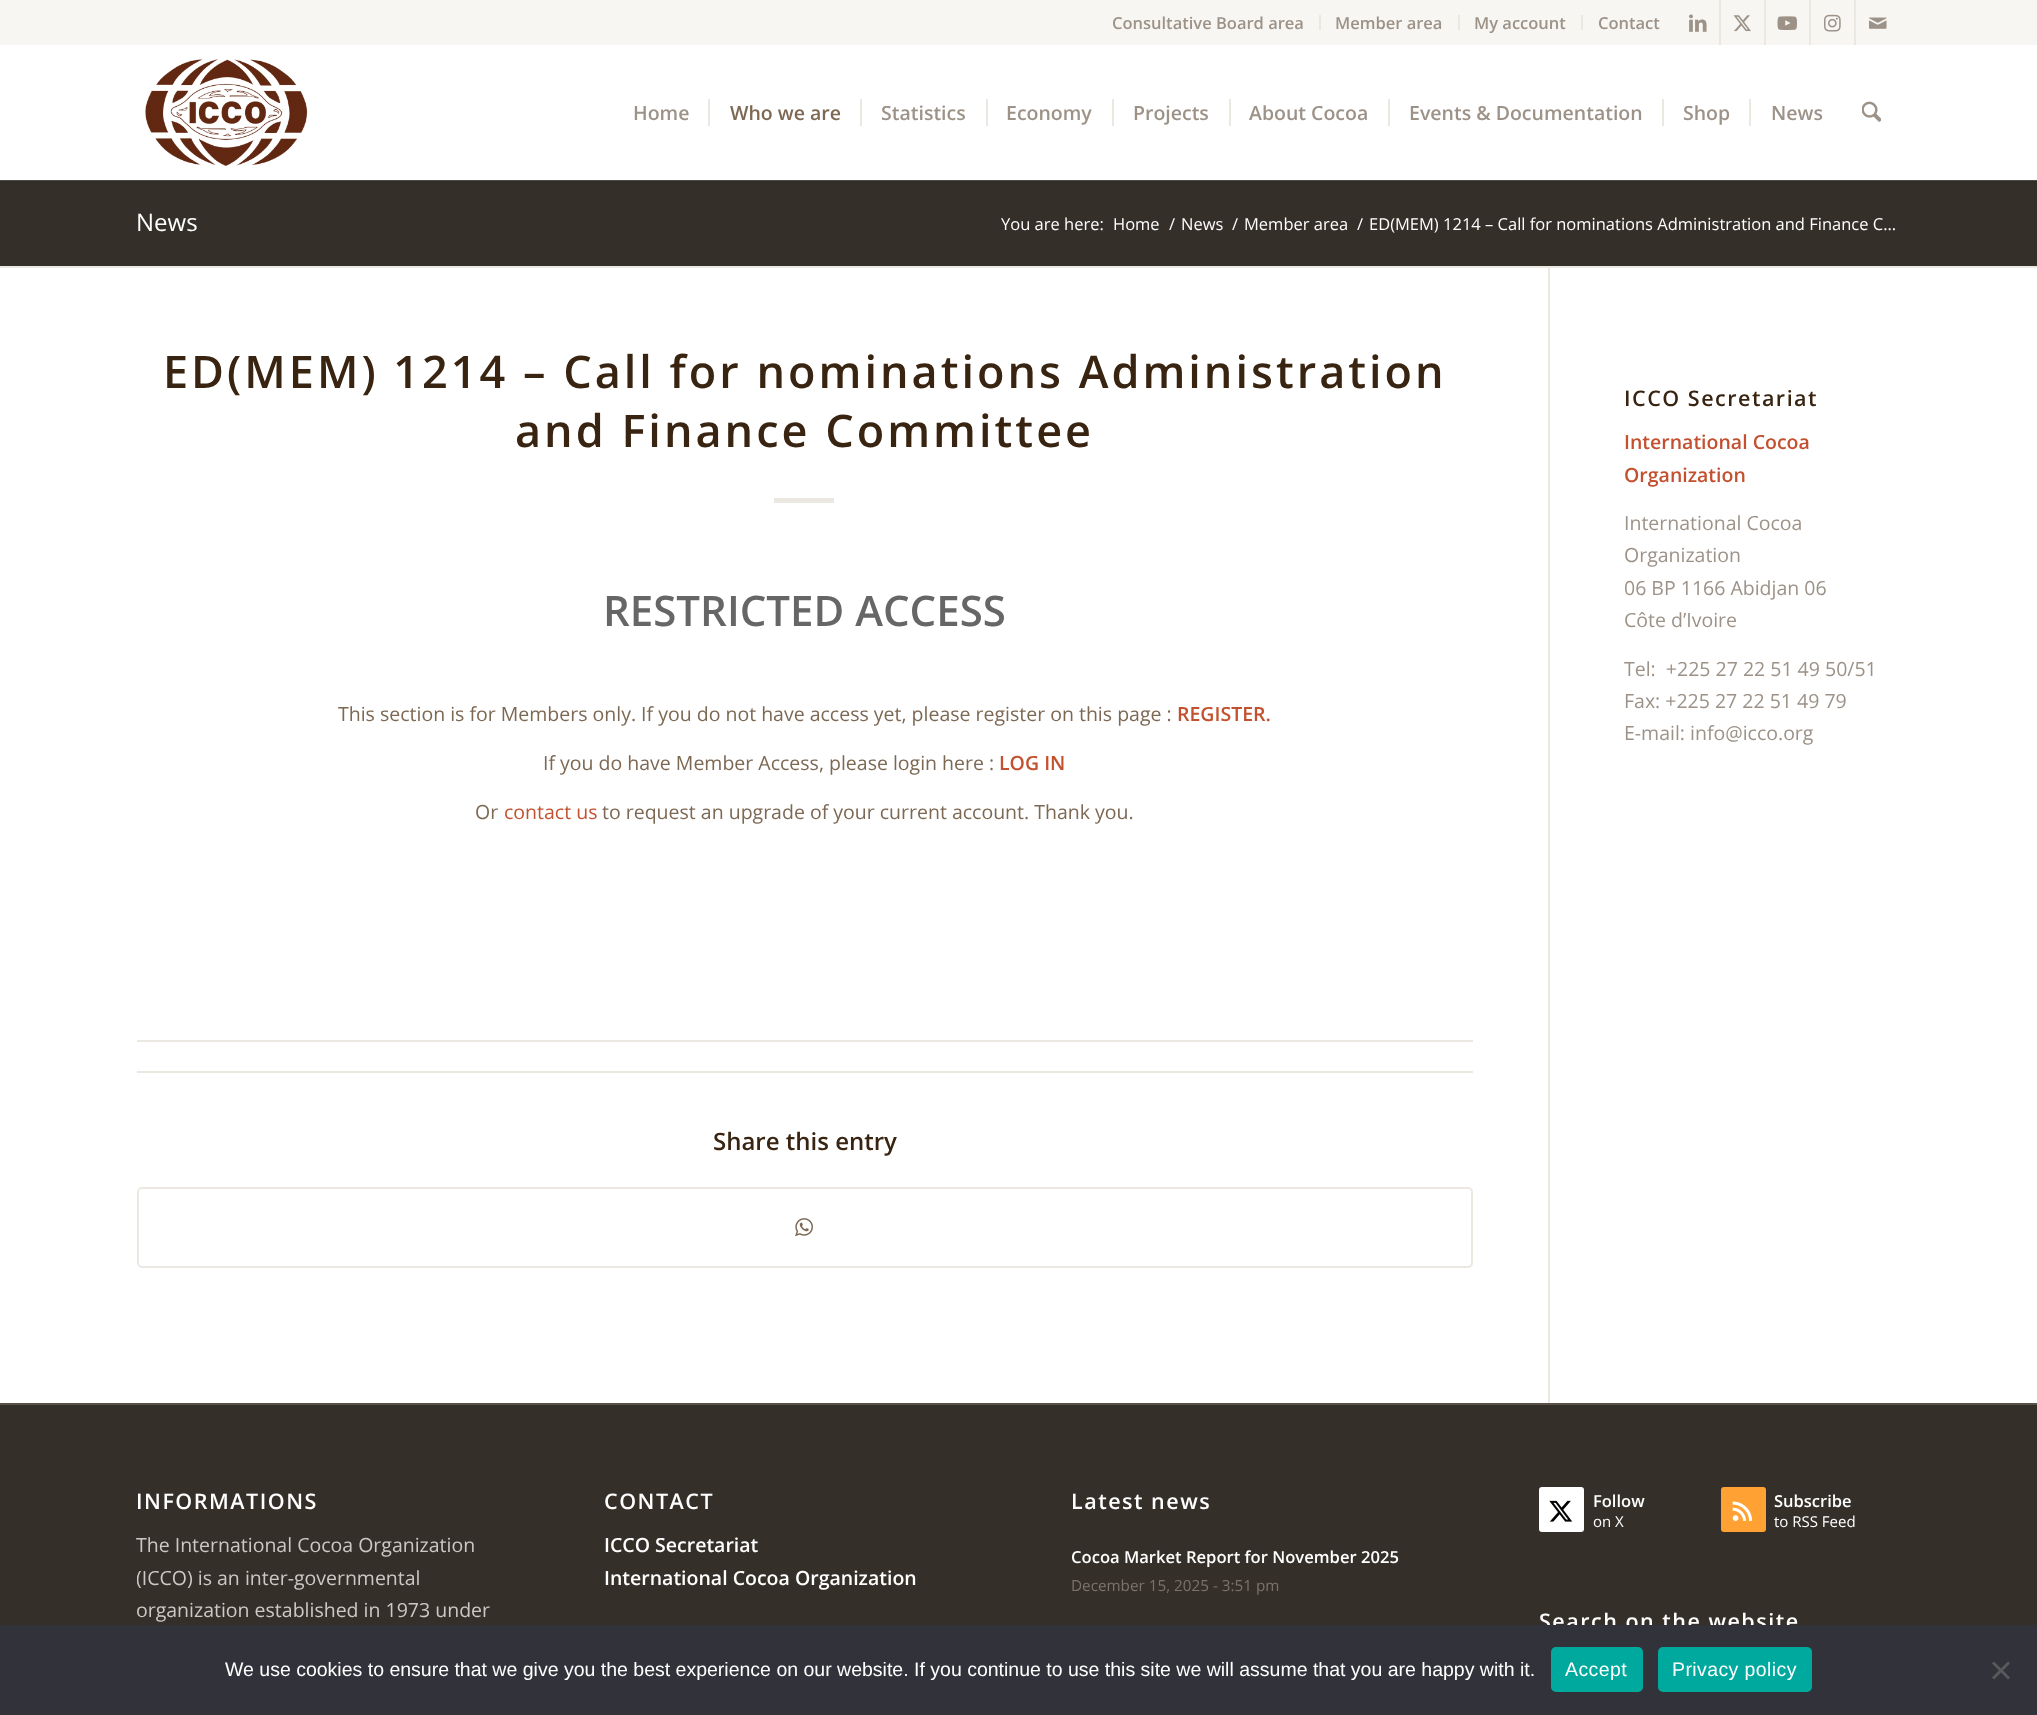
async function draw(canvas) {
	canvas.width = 2037;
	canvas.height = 1715;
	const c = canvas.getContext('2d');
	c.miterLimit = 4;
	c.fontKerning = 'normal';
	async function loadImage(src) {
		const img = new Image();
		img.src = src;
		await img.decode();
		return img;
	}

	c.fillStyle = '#fff';
	c.fillRect(0, 0, 2037, 1715);
	c.fillStyle = '#342f29';
	c.fillRect(0, 181, 2037, 85);
	c.fillStyle = '#575149';
	c.fillRect(0, 180, 2037, 1);
	c.fillStyle = '#0000001a';
	c.filter = 'blur(1.5px)';
	c.beginPath();
	c.rect(-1, -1, 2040, 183);
	c.fill();
	c.filter = 'none';
	c.fillStyle = '#f8f6f2';
	c.fillRect(0, 0, 2037, 45);
	c.fillStyle = '#ebe8e2';
	c.fillRect(1319, 15, 2, 15);
	c.font = '600 16.5px Open Sans';
	c.fillStyle = '#9c9288';
	c.fillText('Consultative Board area', 1112, 29);
	c.fillStyle = '#ebe8e2';
	c.fillRect(1458, 15, 2, 15);
	c.fillStyle = '#9c9288';
	c.fillText('Member area', 1335, 29);
	c.fillStyle = '#ebe8e2';
	c.fillRect(1581, 15, 2, 15);
	c.fillStyle = '#9c9288';
	c.fillText('My account', 1474, 29);
	c.fillText('Contact', 1598, 29);
	c.fillStyle = '#ebe8e2';
	c.fillRect(1719, 0, 2, 45);
	c.drawImage(await loadImage('img1.png'), 1689, 14, 18, 18);
	c.fillRect(1764, 0, 2, 45);
	c.drawImage(await loadImage('img2.png'), 1733, 15, 18, 17);
	c.fillRect(1809, 0, 2, 45);
	c.drawImage(await loadImage('img3.png'), 1777, 16, 20, 14);
	c.fillRect(1854, 0, 2, 45);
	c.drawImage(await loadImage('img4.png'), 1824, 14, 17, 18);
	c.drawImage(await loadImage('img5.png'), 1869, 17, 18, 12);
	c.fillStyle = '#fff';
	c.fillRect(0, 45, 2037, 135);
	c.drawImage(await loadImage('img6.png'), 145, 59, 163, 107);
	c.font = '600 19.5px Open Sans';
	c.fillStyle = '#9c9288';
	c.fillText('Home', 633, 120);
	c.fillStyle = '#7c6853';
	c.fillText('Who we are', 730, 120);
	c.fillStyle = '#ebe8e2';
	c.fillRect(708, 99, 2, 27);
	c.fillStyle = '#9c9288';
	c.fillText('Statistics', 881, 120);
	c.fillStyle = '#ebe8e2';
	c.fillRect(860, 99, 2, 27);
	c.fillStyle = '#9c9288';
	c.fillText('Economy', 1006, 120);
	c.fillStyle = '#ebe8e2';
	c.fillRect(986, 99, 2, 27);
	c.fillStyle = '#9c9288';
	c.fillText('Projects', 1133, 120);
	c.fillStyle = '#ebe8e2';
	c.fillRect(1112, 99, 2, 27);
	c.fillStyle = '#9c9288';
	c.fillText('About Cocoa', 1249, 120);
	c.fillStyle = '#ebe8e2';
	c.fillRect(1229, 99, 2, 27);
	c.fillStyle = '#9c9288';
	c.fillText('Events & Documentation', 1409, 120);
	c.fillStyle = '#ebe8e2';
	c.fillRect(1388, 99, 2, 27);
	c.fillStyle = '#9c9288';
	c.fillText('Shop', 1683, 120);
	c.fillStyle = '#ebe8e2';
	c.fillRect(1662, 99, 2, 27);
	c.fillStyle = '#9c9288';
	c.fillText('News', 1771, 120);
	c.fillStyle = '#ebe8e2';
	c.fillRect(1749, 99, 2, 27);
	c.drawImage(await loadImage('img7.png'), 1862, 101, 19, 21);
	c.font = '24px Open Sans';
	c.fillStyle = '#fff';
	c.fillText('News', 136, 231);
	c.font = '16.5px Open Sans';
	for (const [text, x, y] of [
		['You are here:', 1001, 230],
		['Home', 1113, 230],
		['/', 1169, 230],
		['News', 1181, 230],
		['/', 1232, 230],
		['Member area', 1244, 230],
		['/', 1357, 230],
		['ED(MEM) 1214 – Call for nominations Administration and Finance C...', 1369, 230],
	]) {
		c.fillText(text, x, y);
	}
	c.fillStyle = '#ebe8e2';
	c.fillRect(0, 266, 2037, 2);
	c.fillRect(1548, 267, 2, 1136);
	c.letterSpacing = '3px';
	c.font = '600 45px Open Sans';
	c.fillStyle = '#382410';
	c.fillText('ED(MEM) 1214 – Call for nominations Administration', 163, 388);
	c.fillText('and Finance Committee', 515, 447);
	c.fillStyle = '#ebe8e2';
	c.fillRect(774, 498, 60, 5);
	c.letterSpacing = '0px';
	c.font = '600 42px Open Sans';
	c.fillStyle = '#666';
	c.fillText('RESTRICTED ACCESS', 603, 626);
	c.font = '19.5px Open Sans';
	c.fillStyle = '#7c6853';
	c.fillText('This section is for Members only. If you do not have access yet, please register on this page :', 338, 721);
	c.font = '600 19.5px Open Sans';
	c.fillStyle = '#c3512f';
	c.fillText('REGISTER.', 1177, 721);
	c.font = '19.5px Open Sans';
	c.fillStyle = '#7c6853';
	c.fillText('If you do have Member Access, please login here :', 543, 770);
	c.font = '600 19.5px Open Sans';
	c.fillStyle = '#c3512f';
	c.fillText('LOG IN', 999, 770);
	c.font = '19.5px Open Sans';
	c.fillStyle = '#7c6853';
	c.fillText('Or', 475, 819);
	c.fillStyle = '#c3512f';
	c.fillText('contact us', 504, 819);
	c.fillStyle = '#7c6853';
	c.fillText('to request an upgrade of your current account. Thank you.', 602, 819);
	c.fillStyle = '#ebe8e2';
	c.fillRect(137, 1040, 1336, 2);
	c.fillRect(137, 1071, 1336, 2);
	c.font = '600 24px Open Sans';
	c.fillStyle = '#382410';
	c.fillText('Share this entry', 713, 1150);
	c.beginPath();
	c.roundRect(138, 1188, 1334, 79, 4);
	c.strokeStyle = '#ebe8e2';
	c.lineWidth = 2;
	c.stroke();
	c.drawImage(await loadImage('img8.png'), 795, 1218, 18, 19);
	c.letterSpacing = '1.5px';
	c.font = '600 21.5px Open Sans';
	c.fillText('ICCO Secretariat', 1624, 406);
	c.letterSpacing = '0px';
	c.font = '600 19.5px Open Sans';
	c.fillStyle = '#c3512f';
	c.fillText('International Cocoa', 1624, 449);
	c.fillText('Organization', 1624, 482);
	c.font = '19.5px Open Sans';
	c.fillStyle = '#9c9288';
	for (const [text, x, y] of [
		['International Cocoa', 1624, 530],
		['Organization', 1624, 562],
		['06 BP 1166 Abidjan 06', 1624, 595],
		['Côte d’Ivoire', 1624, 627],
		['Tel:  +225 27 22 51 49 50/51', 1624, 676],
		['Fax: +225 27 22 51 49 79', 1624, 708],
		['E-mail: info@icco.org', 1624, 740],
	]) {
		c.fillText(text, x, y);
	}
	c.fillStyle = '#342f29';
	c.fillRect(0, 1405, 2037, 220);
	c.fillStyle = '#575149';
	c.fillRect(0, 1403, 2037, 2);
	c.letterSpacing = '1.5px';
	c.font = '600 21.5px Open Sans';
	c.fillStyle = '#fff';
	c.fillText('INFORMATIONS', 136, 1509);
	c.letterSpacing = '0px';
	c.font = '19.5px Open Sans';
	c.fillStyle = '#ccc9c4';
	c.fillText('The International Cocoa Organization', 136, 1552);
	c.save();
	c.beginPath();
	c.rect(137, 1472, 361, 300);
	c.clip();
	c.fillText('(ICCO) is an inter-governmental', 136, 1585);
	c.restore();
	c.fillText('organization established in 1973 under', 136, 1617);
	c.letterSpacing = '1.5px';
	c.font = '600 21.5px Open Sans';
	c.fillStyle = '#fff';
	c.fillText('CONTACT', 604, 1509);
	c.letterSpacing = '0px';
	c.font = '600 19.5px Open Sans';
	c.fillText('ICCO Secretariat', 604, 1552);
	c.fillText('International Cocoa Organization', 604, 1585);
	c.letterSpacing = '1.5px';
	c.font = '600 21.5px Open Sans';
	c.fillText('Latest news', 1071, 1509);
	c.letterSpacing = '0px';
	c.font = '600 16.6px Open Sans';
	c.fillText('Cocoa Market Report for November 2025', 1071, 1563);
	c.font = '15.25px Open Sans';
	c.fillStyle = '#7a736b';
	c.fillText('December 15, 2025 - 3:51 pm', 1071, 1591);
	c.fillStyle = '#fff';
	c.beginPath();
	c.roundRect(1539, 1487, 45, 45, 3);
	c.fill();
	c.drawImage(await loadImage('img9.png'), 1549, 1500, 24, 22);
	c.font = '600 16.5px Open Sans';
	c.fillText('Follow', 1593, 1507);
	c.font = '15px Open Sans';
	c.fillText('on X', 1593, 1527);
	c.fillStyle = '#ffa133';
	c.beginPath();
	c.roundRect(1721, 1487, 45, 45, 3);
	c.fill();
	c.drawImage(await loadImage('img10.png'), 1732, 1501, 21, 20);
	c.font = '600 16.5px Open Sans';
	c.fillStyle = '#fff';
	c.fillText('Subscribe', 1774, 1507);
	c.font = '15px Open Sans';
	c.fillText('to RSS Feed', 1774, 1527);
	c.letterSpacing = '1.5px';
	c.font = '600 21.5px Open Sans';
	c.fillText('Search on the website', 1539, 1629);
	c.fillStyle = '#32323a';
	c.fillRect(0, 1625, 2037, 90);
	c.letterSpacing = '0px';
	c.font = '19.5px Liberation Sans';
	c.fillStyle = '#fff';
	c.fillText('We use cookies to ensure that we give you the best experience on our website. If you continue to use this site we will assume that you are happy with it.', 225, 1676);
	c.fillStyle = '#00a99d';
	c.beginPath();
	c.roundRect(1551, 1647, 92, 45, 5);
	c.fill();
	c.letterSpacing = '0.4px';
	c.fillStyle = '#fff';
	c.fillText('Accept', 1565, 1676);
	c.fillStyle = '#00a99d';
	c.beginPath();
	c.roundRect(1658, 1647, 154, 45, 5);
	c.fill();
	c.fillStyle = '#fff';
	c.fillText('Privacy policy', 1672, 1676);
	c.fillStyle = '#59595d';
	c.beginPath();
	c.moveTo(2008, 1661.5);
	c.lineTo(2010, 1663.5);
	c.lineTo(1994, 1679.5);
	c.lineTo(1992, 1677.5);
	c.closePath();
	c.fill();
	c.beginPath();
	c.moveTo(1992, 1663.5);
	c.lineTo(1994, 1661.5);
	c.lineTo(2010, 1677.5);
	c.lineTo(2008, 1679.5);
	c.closePath();
	c.fill();
}

draw(document.querySelector('canvas'));
